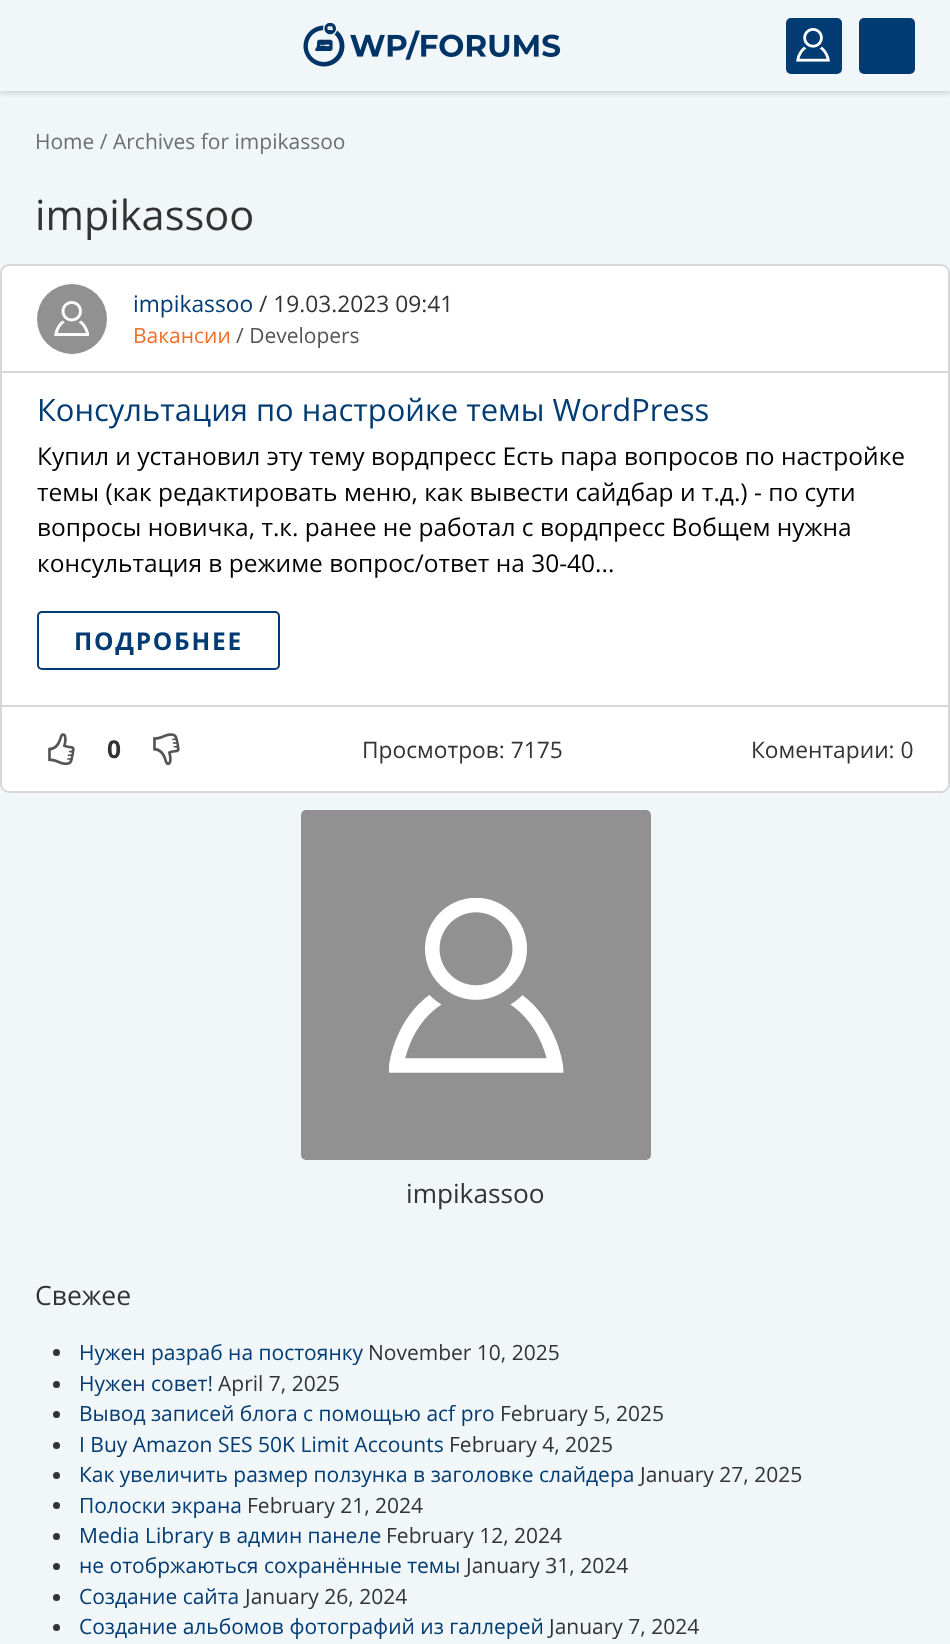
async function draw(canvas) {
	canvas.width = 950;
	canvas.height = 1644;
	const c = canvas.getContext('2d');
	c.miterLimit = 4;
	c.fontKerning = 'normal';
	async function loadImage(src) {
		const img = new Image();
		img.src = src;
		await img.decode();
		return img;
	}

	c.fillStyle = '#f1f7f9';
	c.fillRect(0, 0, 950, 1644);
	c.save();
	c.beginPath();
	c.rect(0, 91, 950, 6);
	c.clip();
	c.fillStyle = '#00000040';
	c.filter = 'blur(4.5px)';
	c.beginPath();
	c.rect(0, 0, 950, 91);
	c.fill();
	c.filter = 'none';
	c.restore();
	c.drawImage(await loadImage('img1.png'), 303, 23, 258, 44);
	c.fillStyle = '#003b73';
	c.beginPath();
	c.roundRect(786, 18, 56, 56, 5);
	c.fill();
	c.drawImage(await loadImage('img2.png'), 796, 28, 34, 34);
	c.beginPath();
	c.roundRect(859, 18, 56, 56, 5);
	c.fill();
	c.font = '21px Open Sans';
	c.fillStyle = '#6e6e6e';
	c.fillText('Home / Archives for impikassoo', 35, 149);
	c.font = '41.5px Open Sans';
	c.fillStyle = '#333';
	c.fillText('impikassoo', 35, 230);
	c.fillStyle = '#fff';
	c.beginPath();
	c.roundRect(1, 265, 948, 527, 8);
	c.fill();
	c.strokeStyle = '#d7d7d7';
	c.lineWidth = 2;
	c.stroke();
	c.fillStyle = '#d7d7d7';
	c.fillRect(2, 371, 947, 2);
	c.fillStyle = '#919191';
	c.beginPath();
	c.arc(72, 319, 35, 0, 2 * Math.PI);
	c.fill();
	c.drawImage(await loadImage('img3.png'), 54, 301, 35, 35);
	c.font = '22.75px Open Sans';
	c.fillStyle = '#003b73';
	c.fillText('impikassoo', 133, 312);
	c.fillStyle = '#333';
	c.fillText('/ 19.03.2023 09:41', 259, 312);
	c.font = '21px Open Sans';
	c.fillStyle = '#f56e28';
	c.fillText('Вакансии', 133, 343);
	c.fillStyle = '#555';
	c.fillText('/ Developers', 236, 343);
	c.font = '30.9px Open Sans';
	c.fillStyle = '#003b73';
	c.fillText('Консультация по настройке темы WordPress', 37, 421);
	c.font = '24.5px Open Sans';
	c.fillStyle = '#000';
	for (const [text, x, y] of [
		['Купил и установил эту тему вордпресс Есть пара вопросов по настройке', 37, 465],
		['темы (как редактировать меню, как вывести сайдбар и т.д.) - по сути', 37, 501],
		['вопросы новичка, т.к. ранее не работал с вордпресс Вобщем нужна', 37, 536],
		['консультация в режиме вопрос/ответ на 30-40...', 37, 572],
	]) {
		c.fillText(text, x, y);
	}
	c.beginPath();
	c.roundRect(38, 612, 241, 57, 4);
	c.strokeStyle = '#003b73';
	c.stroke();
	c.letterSpacing = '1.75px';
	c.font = 'bold 24.5px Open Sans';
	c.fillStyle = '#003b73';
	c.fillText('ПОДРОБНЕЕ', 74, 650);
	c.fillStyle = '#d7d7d7';
	c.fillRect(2, 705, 947, 2);
	c.drawImage(await loadImage('img4.png'), 48, 733, 27, 33);
	c.letterSpacing = '0px';
	c.fillStyle = '#333';
	c.fillText('0', 107, 758);
	c.drawImage(await loadImage('img5.png'), 153, 733, 27, 33);
	c.font = '22.75px Open Sans';
	c.fillText('Просмотров: 7175', 362, 758);
	c.fillText('Коментарии: 0', 751, 758);
	c.fillStyle = '#919191';
	c.beginPath();
	c.roundRect(301, 810, 350, 350, 5);
	c.fill();
	c.drawImage(await loadImage('img6.png'), 389, 898, 175, 175);
	c.font = '26.25px Open Sans';
	c.fillStyle = '#333';
	c.fillText('impikassoo', 406, 1203);
	c.font = '26.5px Open Sans';
	c.fillText('Свежее', 35, 1305);
	c.beginPath();
	c.arc(56.5, 1352.5, 3.5, 0, 2 * Math.PI);
	c.fill();
	c.font = '21px Open Sans';
	c.fillStyle = '#003b73';
	c.fillText('Нужен разраб на постоянку', 79, 1360);
	c.fillStyle = '#333';
	c.fillText('November 10, 2025', 368, 1360);
	c.beginPath();
	c.arc(56.5, 1384.5, 3.5, 0, 2 * Math.PI);
	c.fill();
	c.fillStyle = '#003b73';
	c.fillText('Нужен совет!', 79, 1391);
	c.fillStyle = '#333';
	c.fillText('April 7, 2025', 218, 1391);
	c.beginPath();
	c.arc(56.5, 1414.5, 3.5, 0, 2 * Math.PI);
	c.fill();
	c.fillStyle = '#003b73';
	c.fillText('Вывод записей блога с помощью acf pro', 79, 1421);
	c.fillStyle = '#333';
	c.fillText('February 5, 2025', 500, 1421);
	c.beginPath();
	c.arc(56.5, 1445.5, 3.5, 0, 2 * Math.PI);
	c.fill();
	c.fillStyle = '#003b73';
	c.fillText('I Buy Amazon SES 50K Limit Accounts', 79, 1452);
	c.fillStyle = '#333';
	c.fillText('February 4, 2025', 449, 1452);
	c.beginPath();
	c.arc(56.5, 1475.5, 3.5, 0, 2 * Math.PI);
	c.fill();
	c.fillStyle = '#003b73';
	c.fillText('Как увеличить размер ползунка в заголовке слайдера', 79, 1482);
	c.fillStyle = '#333';
	c.fillText('January 27, 2025', 640, 1482);
	c.beginPath();
	c.arc(56.5, 1505.5, 3.5, 0, 2 * Math.PI);
	c.fill();
	c.fillStyle = '#003b73';
	c.fillText('Полоски экрана', 79, 1513);
	c.fillStyle = '#333';
	c.fillText('February 21, 2024', 247, 1513);
	c.beginPath();
	c.arc(56.5, 1536.5, 3.5, 0, 2 * Math.PI);
	c.fill();
	c.fillStyle = '#003b73';
	c.fillText('Media Library в админ панеле', 79, 1543);
	c.fillStyle = '#333';
	c.fillText('February 12, 2024', 386, 1543);
	c.beginPath();
	c.arc(56.5, 1566.5, 3.5, 0, 2 * Math.PI);
	c.fill();
	c.fillStyle = '#003b73';
	c.fillText('не отобржаються сохранённые темы', 79, 1573);
	c.fillStyle = '#333';
	c.fillText('January 31, 2024', 466, 1573);
	c.beginPath();
	c.arc(56.5, 1597.5, 3.5, 0, 2 * Math.PI);
	c.fill();
	c.fillStyle = '#003b73';
	c.fillText('Создание сайта', 79, 1604);
	c.fillStyle = '#333';
	c.fillText('January 26, 2024', 245, 1604);
	c.beginPath();
	c.arc(56.5, 1627.5, 3.5, 0, 2 * Math.PI);
	c.fill();
	c.fillStyle = '#003b73';
	c.fillText('Создание альбомов фотографий из галлерей', 79, 1634);
	c.fillStyle = '#333';
	c.fillText('January 7, 2024', 549, 1634);
}

draw(document.querySelector('canvas'));
